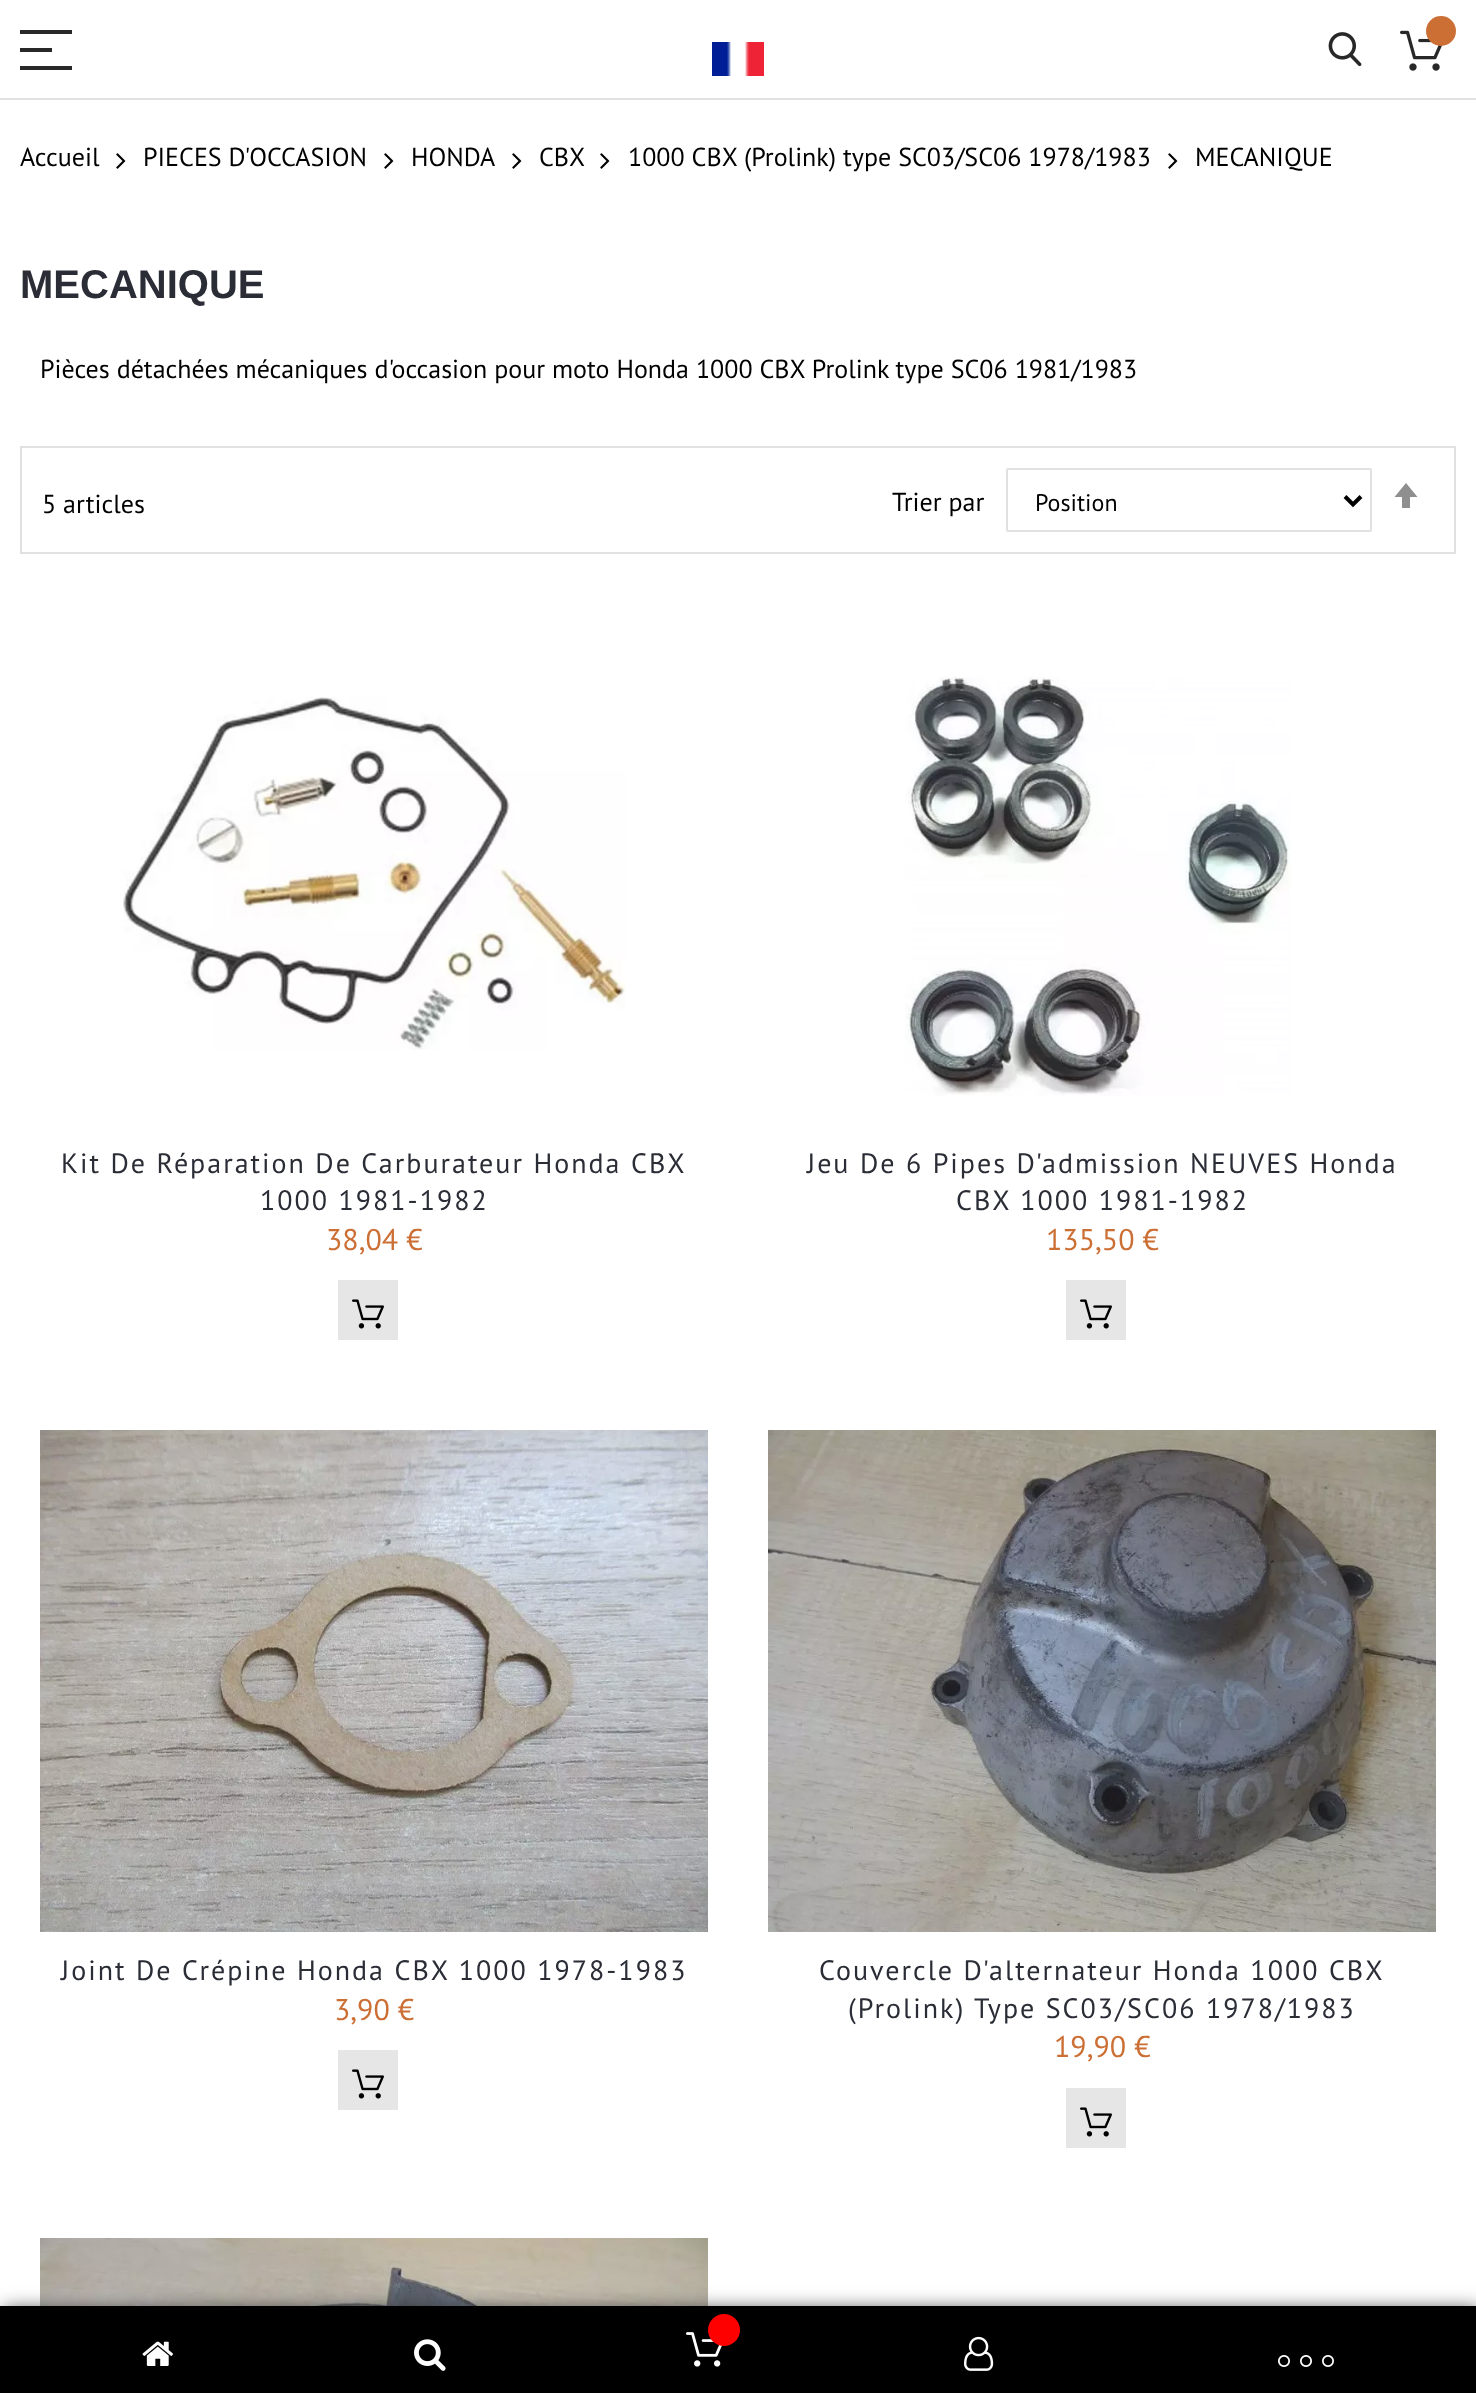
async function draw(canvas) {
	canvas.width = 1476;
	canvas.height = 2393;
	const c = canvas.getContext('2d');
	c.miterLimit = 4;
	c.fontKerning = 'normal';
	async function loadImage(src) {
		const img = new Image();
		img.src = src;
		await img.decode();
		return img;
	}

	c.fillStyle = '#fff';
	c.fillRect(0, 0, 1476, 2393);
	for (const [x, y, w, h, color] of [
		[0, 98, 1476, 2, '#e1e1e1'],
		[20, 30, 52, 4, '#282828'],
		[20, 66, 52, 4, '#282828'],
		[20, 48, 32, 4, '#282828'],
	]) {
		c.fillStyle = color;
		c.fillRect(x, y, w, h);
	}
	c.drawImage(await loadImage('img1.png'), 712, 42, 52, 34);
	c.drawImage(await loadImage('img2.png'), 1328, 32, 34, 35);
	c.drawImage(await loadImage('img3.png'), 1400, 30, 43, 41);
	c.fillStyle = '#cc6f35';
	c.beginPath();
	c.arc(1441, 31, 15, 0, 2 * Math.PI);
	c.fill();
	c.font = '26px PT Sans';
	c.fillStyle = '#000';
	c.fillText('Accueil', 20, 166);
	c.drawImage(await loadImage('img4.png'), 116, 153, 10, 16);
	c.fillText('PIECES D\'OCCASION', 143, 166);
	c.drawImage(await loadImage('img4.png'), 384, 153, 10, 16);
	c.fillText('HONDA', 411, 166);
	c.drawImage(await loadImage('img4.png'), 512, 153, 10, 16);
	c.fillText('CBX', 539, 166);
	c.drawImage(await loadImage('img4.png'), 600, 153, 10, 16);
	c.fillText('1000 CBX (Prolink) type SC03/SC06 1978/1983', 628, 166);
	c.drawImage(await loadImage('img4.png'), 1168, 153, 10, 16);
	c.fillText('MECANIQUE', 1195, 166);
	c.font = 'bold 40px Liberation Sans';
	c.fillStyle = '#2b2d36';
	c.fillText('MECANIQUE', 20, 298);
	c.font = '26px PT Sans';
	c.fillStyle = '#000';
	c.fillText('Pièces détachées mécaniques d\'occasion pour moto Honda 1000 CBX Prolink type SC06 1981/1983', 40, 378);
	c.strokeStyle = '#e1e1e1';
	c.lineWidth = 2;
	c.strokeRect(21, 447, 1434, 106);
	c.fillText('5 articles', 42, 513);
	c.fillText('Trier par', 892, 511);
	c.beginPath();
	c.roundRect(1007, 469, 364, 62, 1);
	c.stroke();
	c.beginPath();
	c.moveTo(1345, 496.5);
	c.lineTo(1353, 504.5);
	c.lineTo(1361, 496.5);
	c.strokeStyle = '#000';
	c.lineWidth = 4;
	c.stroke();
	c.font = '24px PT Sans';
	c.fillText('Position', 1035, 511);
	c.fillStyle = '#8f8f8f';
	c.beginPath();
	c.moveTo(1406, 483);
	c.lineTo(1394.5, 497);
	c.lineTo(1402, 497);
	c.lineTo(1402, 508);
	c.lineTo(1410, 508);
	c.lineTo(1410, 497);
	c.lineTo(1417.5, 497);
	c.closePath();
	c.fill();
	c.drawImage(await loadImage('img5.png'), 123, 697, 503, 353);
	c.letterSpacing = '2px';
	c.font = '28px PT Sans';
	c.fillStyle = '#2b2d36';
	c.fillText('Kit De Réparation De Carburateur Honda CBX', 61, 1173);
	c.fillText('1000 1981-1982', 260, 1210);
	c.letterSpacing = '0px';
	c.font = '30px PT Sans';
	c.fillStyle = '#cc6f35';
	c.fillText('38,04 €', 326, 1250);
	c.fillStyle = '#e6e6e6';
	c.fillRect(338, 1280, 60, 60);
	c.drawImage(await loadImage('img6.png'), 352, 1299, 32, 30);
	c.drawImage(await loadImage('img7.png'), 905, 677, 386, 419);
	c.letterSpacing = '2px';
	c.font = '28px PT Sans';
	c.fillStyle = '#2b2d36';
	c.fillText('Jeu De 6 Pipes D\'admission NEUVES Honda', 807, 1173);
	c.fillText('CBX 1000 1981-1982', 956, 1210);
	c.letterSpacing = '0px';
	c.font = '30px PT Sans';
	c.fillStyle = '#cc6f35';
	c.fillText('135,50 €', 1046, 1250);
	c.fillStyle = '#e6e6e6';
	c.fillRect(1066, 1280, 60, 60);
	c.drawImage(await loadImage('img6.png'), 1080, 1299, 32, 30);
	c.drawImage(await loadImage('img8.png'), 40, 1430, 668, 502);
	c.letterSpacing = '2px';
	c.font = '28px PT Sans';
	c.fillStyle = '#2b2d36';
	c.fillText('Joint De Crépine Honda CBX 1000 1978-1983', 61, 1980);
	c.letterSpacing = '0px';
	c.font = '30px PT Sans';
	c.fillStyle = '#cc6f35';
	c.fillText('3,90 €', 334, 2020);
	c.fillStyle = '#e6e6e6';
	c.fillRect(338, 2050, 60, 60);
	c.drawImage(await loadImage('img6.png'), 352, 2069, 32, 30);
	c.drawImage(await loadImage('img9.png'), 768, 1430, 668, 502);
	c.letterSpacing = '2px';
	c.font = '28px PT Sans';
	c.fillStyle = '#2b2d36';
	c.fillText('Couvercle D\'alternateur Honda 1000 CBX', 819, 1980);
	c.fillText('(Prolink) Type SC03/SC06 1978/1983', 848, 2018);
	c.letterSpacing = '0px';
	c.font = '30px PT Sans';
	c.fillStyle = '#cc6f35';
	c.fillText('19,90 €', 1054, 2057);
	c.fillStyle = '#e6e6e6';
	c.fillRect(1066, 2088, 60, 60);
	c.drawImage(await loadImage('img6.png'), 1080, 2107, 32, 30);
	c.drawImage(await loadImage('img10.png'), 40, 2238, 668, 68);
	c.fillStyle = '#333';
	c.filter = 'blur(10px)';
	c.beginPath();
	c.rect(4, 2310, 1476, 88);
	c.fill();
	c.filter = 'none';
	c.fillStyle = '#000';
	c.fillRect(0, 2306, 1476, 87);
	c.drawImage(await loadImage('img11.png'), 142, 2341, 31, 25);
	c.drawImage(await loadImage('img12.png'), 414, 2339, 32, 32);
	c.drawImage(await loadImage('img13.png'), 686, 2332, 37, 35);
	c.fillStyle = '#f00';
	c.beginPath();
	c.arc(724, 2330, 16, 0, 2 * Math.PI);
	c.fill();
	c.drawImage(await loadImage('img14.png'), 964, 2336, 30, 35);
	c.drawImage(await loadImage('img15.png'), 1278, 2355, 12, 12);
	c.drawImage(await loadImage('img15.png'), 1300, 2355, 12, 12);
	c.drawImage(await loadImage('img15.png'), 1322, 2355, 12, 12);
}

draw(document.querySelector('canvas'));
